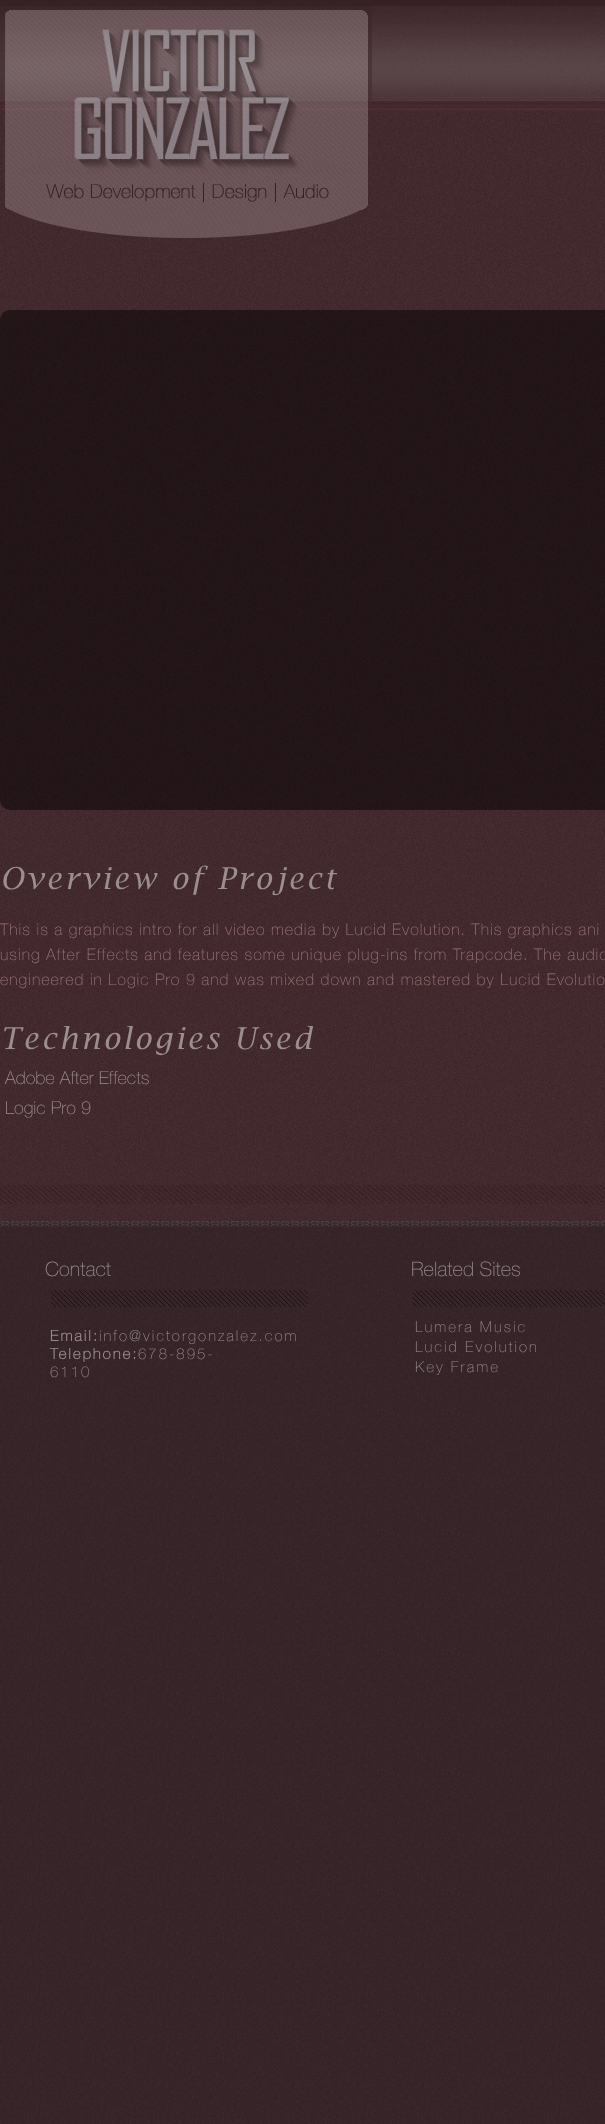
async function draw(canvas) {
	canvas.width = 605;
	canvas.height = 2124;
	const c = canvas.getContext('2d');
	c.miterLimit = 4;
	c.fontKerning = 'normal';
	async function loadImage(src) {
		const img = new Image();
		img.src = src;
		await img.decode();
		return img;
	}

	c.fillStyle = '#fff';
	c.fillRect(0, 0, 605, 2124);
	c.drawImage(await loadImage('img1.png'), 0, 0, 605, 2124);
	c.drawImage(await loadImage('img2.png'), 0, 0, 605, 1224);
	c.drawImage(await loadImage('img3.png'), 0, 0, 605, 111);
	c.drawImage(await loadImage('img4.png'), 0, 6, 372, 232);
	c.fillStyle = '#00000078';
	c.beginPath();
	c.roundRect(0, 310, 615, 500, 10);
	c.fill();
	c.letterSpacing = '3px';
	c.font = 'italic 30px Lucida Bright';
	c.fillStyle = '#9b8e90';
	c.fillText('Overview of Project', 0, 889);
	c.letterSpacing = '1px';
	c.font = '200 16px Helvetica Neue';
	c.fillStyle = '#9b7678';
	for (const [text, x, y] of [
		['This is a graphics intro for all video media by Lucid Evolution. This graphics ani', 0, 935],
		['using After Effects and features some unique plug-ins from Trapcode. The audio', 0, 960],
		['engineered in Logic Pro 9 and was mixed down and mastered by Lucid Evolutio', 0, 985],
	]) {
		c.fillText(text, x, y);
	}
	c.letterSpacing = '3px';
	c.font = 'italic 30px Lucida Bright';
	c.fillStyle = '#9b8e90';
	c.fillText('Technologies Used', 0, 1049);
	c.letterSpacing = '0px';
	c.font = '200 18px Helvetica Neue';
	c.fillText('Adobe After Effects', 5, 1084);
	c.fillText('Logic Pro 9', 5, 1114);
	c.drawImage(await loadImage('img5.png'), 0, 1185, 605, 19);
	c.drawImage(await loadImage('img6.png'), 1, 1221, 604, 3);
	c.drawImage(await loadImage('img7.png'), 57, 1267, 521, 1);
	c.drawImage(await loadImage('img8.png'), 1, 1224, 604, 3);
	c.font = '200 20px Helvetica Neue';
	c.fillStyle = '#958b8d';
	c.fillText('Contact', 45, 1276);
	c.fillText('Related Sites', 411, 1276);
	c.drawImage(await loadImage('img9.png'), 51, 1290, 257, 17);
	c.drawImage(await loadImage('img10.png'), 412, 1290, 193, 17);
	c.letterSpacing = '2px';
	c.font = 'bold 15px Helvetica Neue';
	c.fillText('Email:', 50, 1341);
	c.font = '200 15px Helvetica Neue';
	c.fillText('info@victorgonzalez.com', 99, 1341);
	c.font = 'bold 15px Helvetica Neue';
	c.fillText('Telephone:', 50, 1359);
	c.font = '200 15px Helvetica Neue';
	for (const [text, x, y] of [
		['678-895-', 138, 1359],
		['6110', 50, 1377],
		['Lumera Music', 415, 1332],
		['Lucid Evolution', 415, 1352],
		['Key Frame', 415, 1372],
	]) {
		c.fillText(text, x, y);
	}
}

draw(document.querySelector('canvas'));
